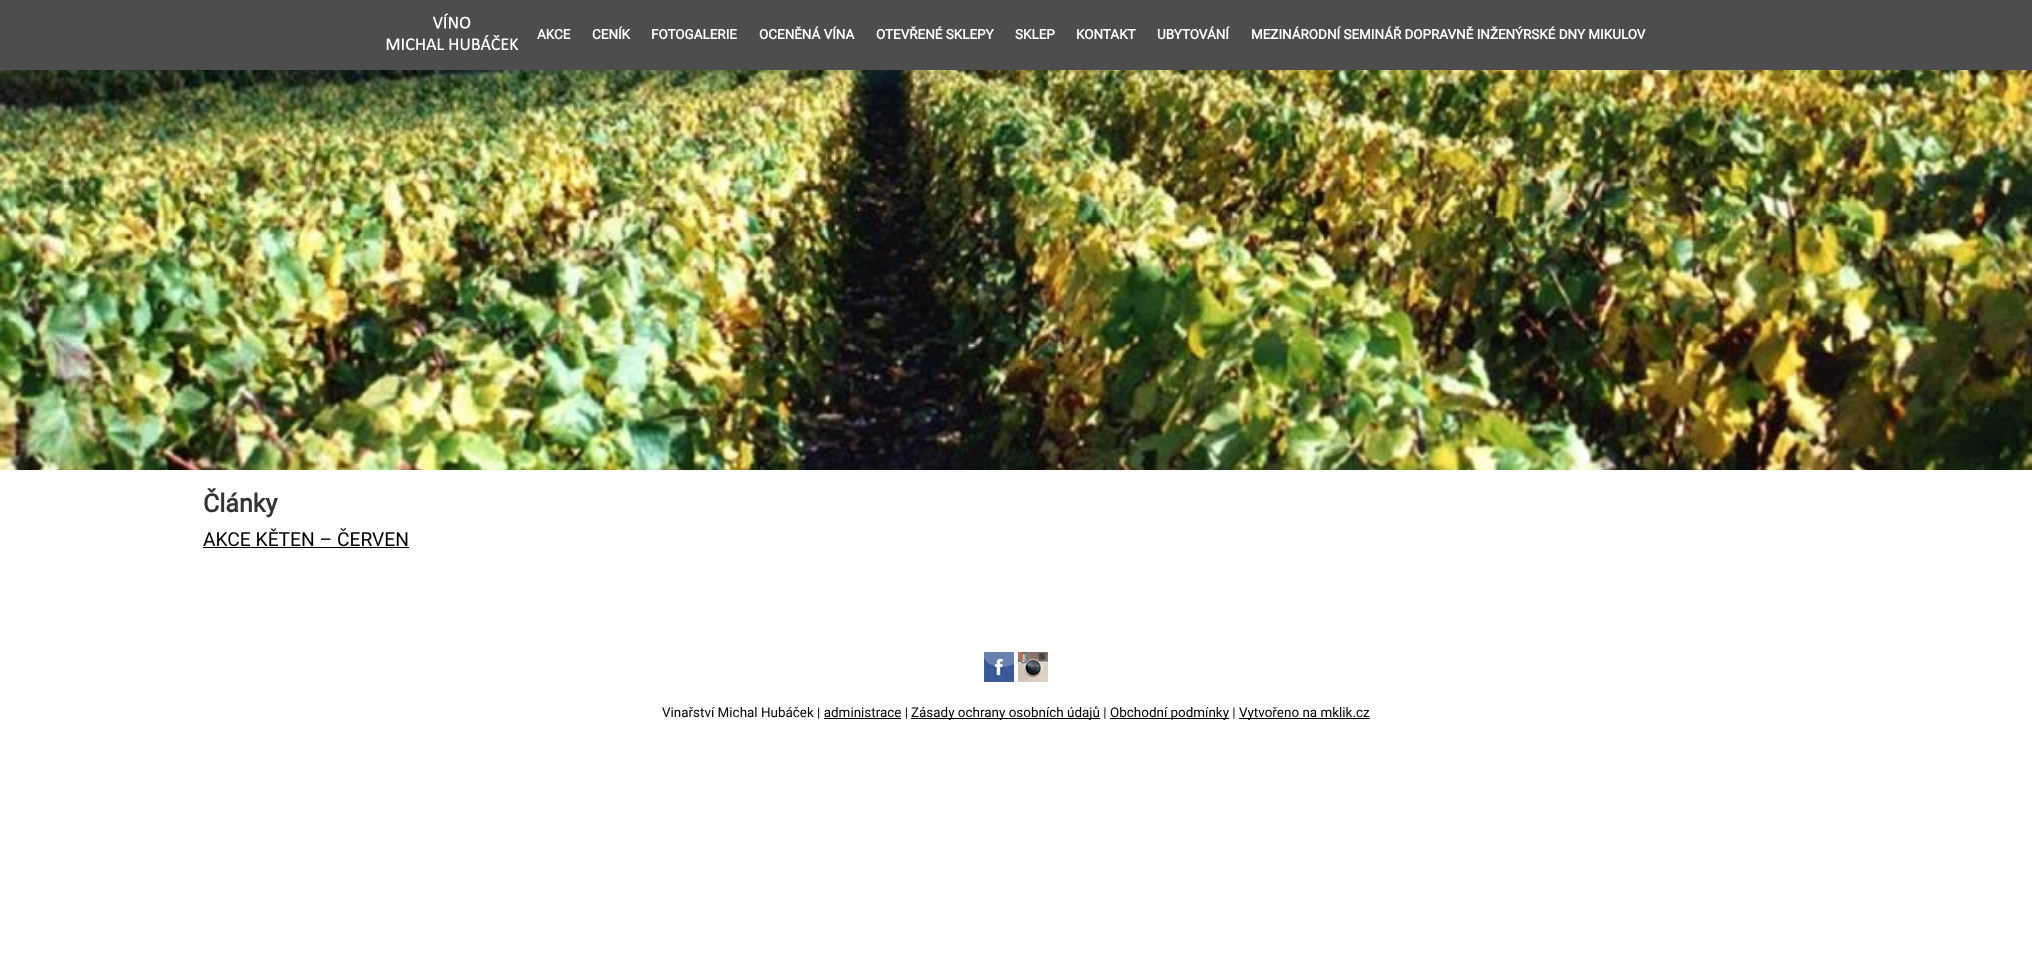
async function draw(canvas) {
	canvas.width = 2032;
	canvas.height = 967;
	const c = canvas.getContext('2d');
	c.miterLimit = 4;
	c.fontKerning = 'normal';
	async function loadImage(src) {
		const img = new Image();
		img.src = src;
		await img.decode();
		return img;
	}

	c.fillStyle = '#fff';
	c.fillRect(0, 0, 2032, 967);
	c.fillStyle = '#4d4d4d';
	c.fillRect(0, 0, 2032, 70);
	c.drawImage(await loadImage('img1.png'), 386, 13, 133, 38);
	c.font = 'bold 13.45px Roboto';
	c.fillStyle = '#fff';
	for (const [text, x, y] of [
		['AKCE', 537, 39],
		['CENÍK', 592, 39],
		['FOTOGALERIE', 651, 39],
		['OCENĚNÁ VÍNA', 759, 39],
		['OTEVŘENÉ SKLEPY', 876, 39],
		['SKLEP', 1015, 39],
		['KONTAKT', 1076, 39],
		['UBYTOVÁNÍ', 1157, 39],
		['MEZINÁRODNÍ SEMINÁŘ DOPRAVNĚ INŽENÝRSKÉ DNY MIKULOV', 1251, 39],
	]) {
		c.fillText(text, x, y);
	}
	c.drawImage(await loadImage('img2.png'), 0, 70, 2032, 400);
	c.font = 'bold 25px Roboto';
	c.fillStyle = '#333';
	c.fillText('Články', 203, 512);
	c.font = '19.25px Roboto';
	c.fillStyle = '#000';
	c.fillText('AKCE KĚTEN – ČERVEN', 203, 546);
	c.fillRect(203, 547, 206, 1);
	c.drawImage(await loadImage('img3.png'), 984, 652, 30, 30);
	c.drawImage(await loadImage('img4.png'), 1018, 652, 30, 30);
	c.font = '13.45px Roboto';
	c.fillText('Vinařství Michal Hubáček | administrace |', 662, 717);
	c.fillRect(911, 718, 189, 1);
	c.fillText('Zásady ochrany osobních údajů |', 911, 717);
	c.fillRect(1110, 718, 119, 1);
	c.fillText('Obchodní podmínky |', 1110, 717);
	c.fillRect(1239, 718, 131, 1);
	c.fillText('Vytvořeno na mklik.cz', 1239, 717);
	c.fillRect(824, 718, 77, 1);
}

draw(document.querySelector('canvas'));
